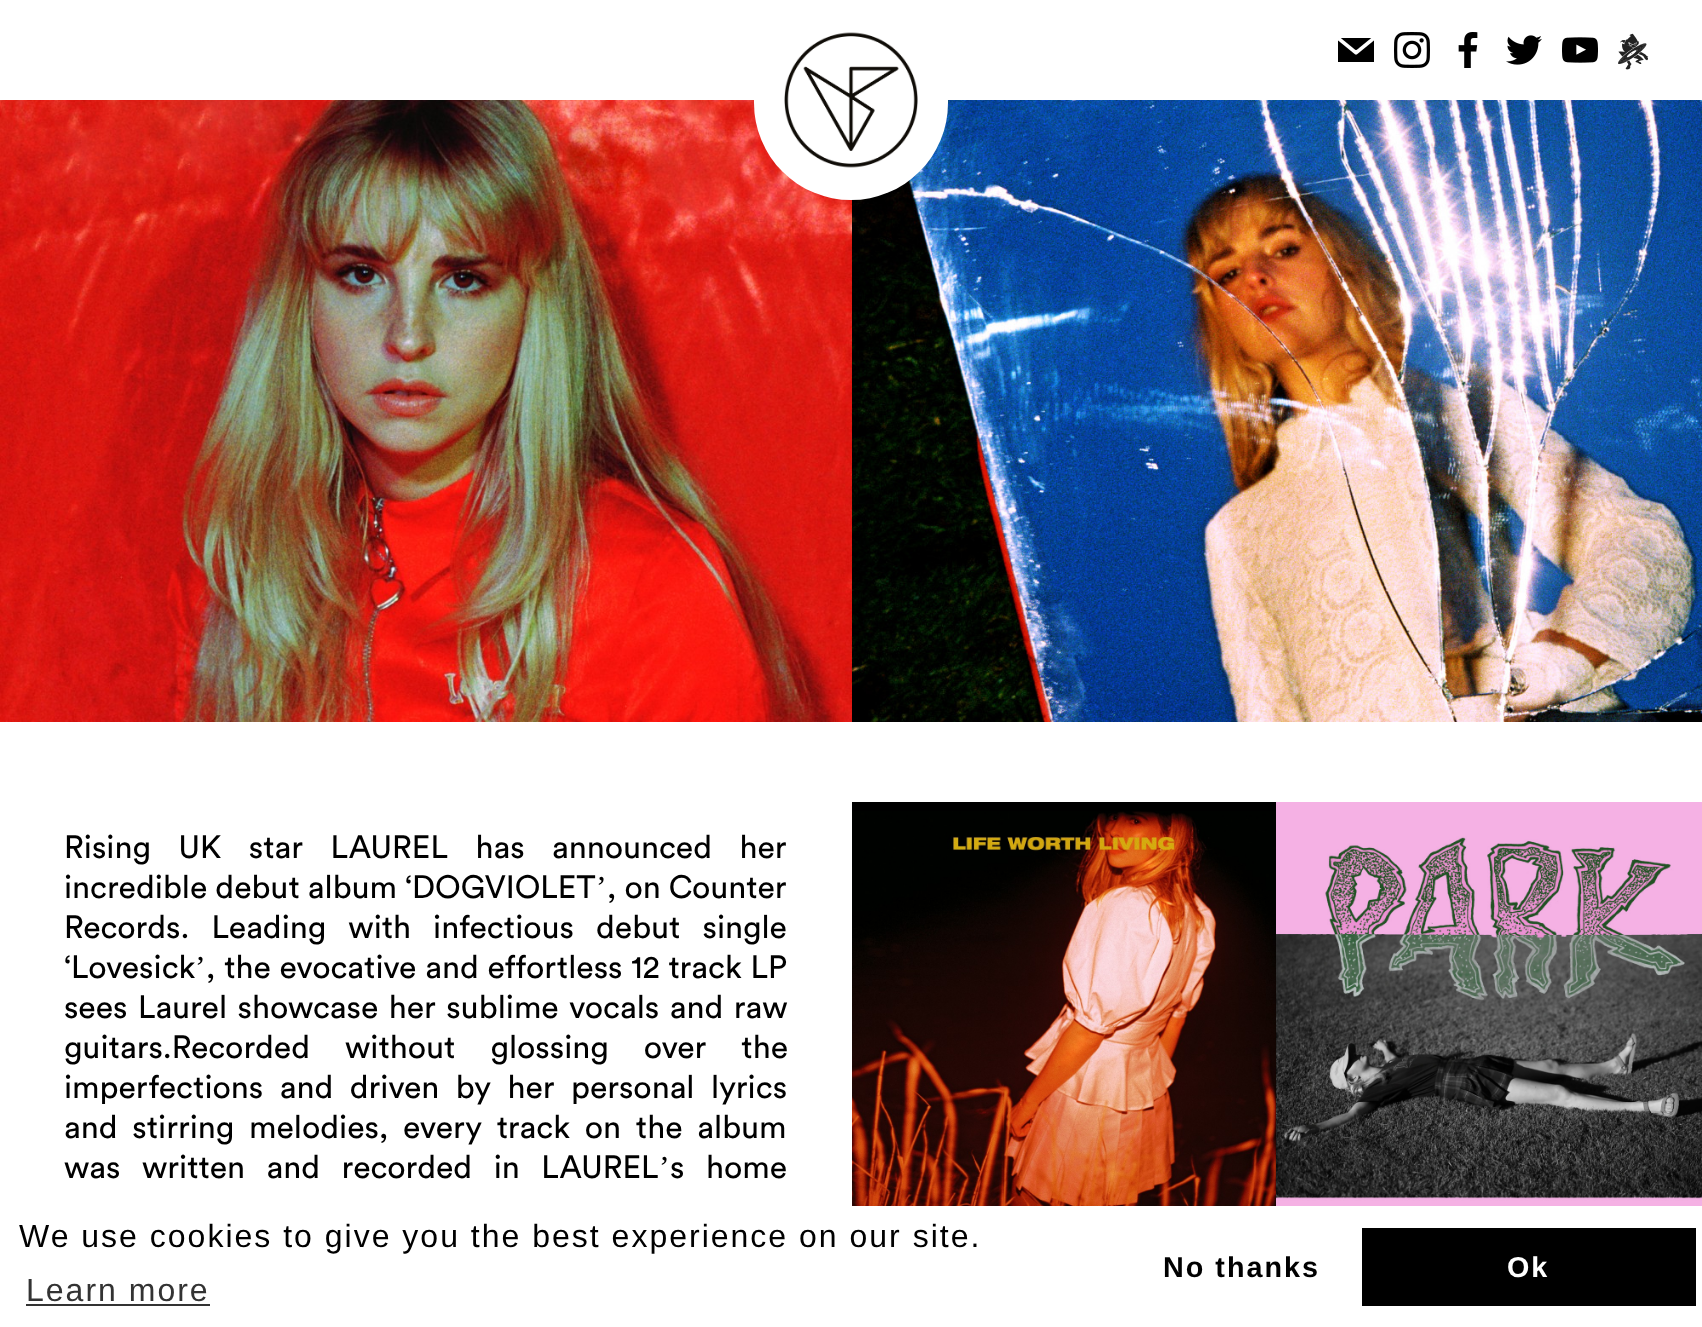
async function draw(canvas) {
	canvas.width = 1702;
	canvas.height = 1327;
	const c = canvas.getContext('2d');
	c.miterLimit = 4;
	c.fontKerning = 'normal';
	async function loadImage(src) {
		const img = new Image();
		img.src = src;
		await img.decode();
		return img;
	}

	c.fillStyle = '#fff';
	c.fillRect(0, 0, 1702, 1327);
	c.drawImage(await loadImage('img8.png'), 0, 100, 852, 622);
	c.drawImage(await loadImage('img9.png'), 852, 100, 850, 622);
	c.beginPath();
	c.roundRect(754, 0, 194, 200, 97);
	c.fill();
	c.drawImage(await loadImage('img1.png'), 784, 32, 134, 136);
	c.drawImage(await loadImage('img2.png'), 1338, 38, 36, 24);
	c.drawImage(await loadImage('img3.png'), 1394, 32, 36, 36);
	c.drawImage(await loadImage('img4.png'), 1458, 32, 20, 36);
	c.drawImage(await loadImage('img5.png'), 1506, 35, 36, 30);
	c.drawImage(await loadImage('img6.png'), 1562, 37, 36, 26);
	c.drawImage(await loadImage('img7.png'), 1618, 33, 31, 37);
	c.wordSpacing = '19.5px';
	c.font = '32px Circular';
	c.fillStyle = '#000';
	c.fillText('Rising UK star LAUREL has announced her', 64, 858);
	c.wordSpacing = '0px';
	c.fillText('incredible debut album ‘DOGVIOLET', 64, 898);
	c.font = '32px Liberation Serif';
	c.fillText('’', 596, 898);
	c.font = '32px Circular';
	c.fillText(', on Counter', 607, 898);
	c.wordSpacing = '14px';
	c.fillText('Records. Leading with infectious debut single', 64, 938);
	c.wordSpacing = '0px';
	c.fillText('‘Lovesick', 64, 978);
	c.font = '32px Liberation Serif';
	c.fillText('’', 195, 978);
	c.wordSpacing = '0.75px';
	c.font = '32px Circular';
	c.fillText(', the evocative and effortless 12 track LP', 206, 978);
	c.wordSpacing = '2.5px';
	c.fillText('sees Laurel showcase her sublime vocals and raw', 64, 1018);
	c.wordSpacing = '27px';
	c.fillText('guitars.Recorded without glossing over the', 64, 1058);
	c.wordSpacing = '8.5px';
	c.fillText('imperfections and driven by her personal lyrics', 64, 1098);
	c.wordSpacing = '6.75px';
	c.fillText('and stirring melodies, every track on the album', 64, 1138);
	c.wordSpacing = '13.5px';
	c.fillText('was written and recorded in LAUREL', 64, 1178);
	c.wordSpacing = '0px';
	c.font = '32px Liberation Serif';
	c.fillText('’', 659, 1178);
	c.wordSpacing = '13.5px';
	c.font = '32px Circular';
	c.fillText('s home', 670, 1178);
	c.fillRect(852, 802, 424, 9);
	c.drawImage(await loadImage('img10.png'), 852, 811, 424, 395);
	c.drawImage(await loadImage('img11.png'), 1276, 802, 426, 404);
	c.letterSpacing = '2px';
	c.wordSpacing = '0px';
	c.font = '32px Liberation Sans';
	c.fillText('We use cookies to give you the best experience on our site.', 19, 1247);
	c.fillStyle = '#333';
	c.fillText('Learn more', 26, 1301);
	c.fillRect(26, 1304, 184, 2);
	c.font = 'bold 28.75px Liberation Sans';
	c.fillStyle = '#000';
	c.fillText('No thanks', 1163, 1277);
	c.fillRect(1362, 1228, 334, 78);
	c.fillStyle = '#fff';
	c.fillText('Ok', 1507, 1277);
}

draw(document.querySelector('canvas'));
